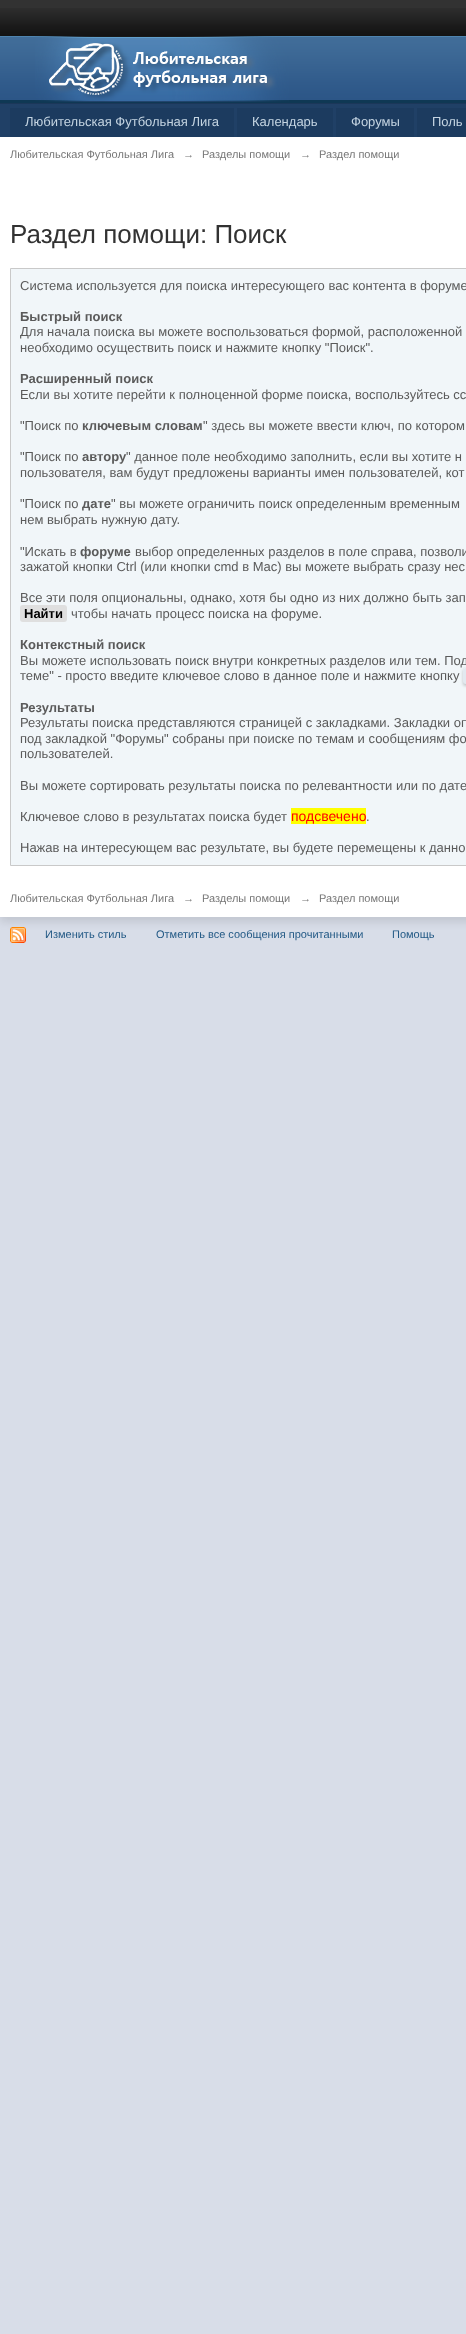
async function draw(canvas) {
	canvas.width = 466;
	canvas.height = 2334;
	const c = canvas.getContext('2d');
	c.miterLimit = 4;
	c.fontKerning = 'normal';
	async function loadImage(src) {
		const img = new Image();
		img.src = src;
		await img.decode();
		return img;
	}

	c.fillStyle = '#d8dde8';
	c.fillRect(0, 0, 466, 2334);
	c.fillStyle = '#323232';
	c.fillRect(0, 0, 466, 8);
	c.drawImage(await loadImage('img1.png'), 0, 8, 466, 28);
	c.fillStyle = '#0f3854';
	c.fillRect(0, 100, 466, 3);
	c.drawImage(await loadImage('img2.png'), 0, 36, 466, 64);
	c.fillStyle = '#1b3759';
	c.fillRect(0, 103, 466, 1);
	c.drawImage(await loadImage('img3.png'), 35, 36, 254, 66);
	c.fillStyle = '#204066';
	c.fillRect(0, 104, 466, 33);
	c.fillStyle = '#0000001a';
	c.filter = 'blur(4.5px)';
	c.beginPath();
	c.rect(0, 142, 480, 780);
	c.fill();
	c.filter = 'none';
	c.fillStyle = '#1c3b5f';
	c.fillRect(10, 108, 224, 29);
	c.font = '13px Liberation Sans';
	c.fillStyle = '#c5d5e2';
	c.fillText('Любительская Футбольная Лига', 25, 126);
	c.fillStyle = '#1c3b5f';
	c.fillRect(237, 108, 96, 29);
	c.fillStyle = '#c5d5e2';
	c.fillText('Календарь', 252, 126);
	c.fillStyle = '#1c3b5f';
	c.fillRect(336, 108, 78, 29);
	c.fillStyle = '#c5d5e2';
	c.fillText('Форумы', 351, 126);
	c.fillStyle = '#1c3b5f';
	c.fillRect(417, 108, 49, 29);
	c.fillStyle = '#c5d5e2';
	c.fillText('Поль', 432, 126);
	c.fillStyle = '#fff';
	c.fillRect(0, 137, 466, 780);
	c.font = '11px Liberation Sans';
	c.fillStyle = '#777';
	for (const [text, x, y] of [
		['Любительская Футбольная Лига', 10, 158],
		['→', 183, 158],
		['Разделы помощи', 202, 158],
		['→', 300, 158],
		['Раздел помощи', 319, 158],
	]) {
		c.fillText(text, x, y);
	}
	c.font = '26px Liberation Sans';
	c.fillStyle = '#323232';
	c.fillText('Раздел помощи: Поиск', 10, 243);
	c.fillStyle = '#f1f6f9';
	c.beginPath();
	c.rect(10.5, 268.5, 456, 597);
	c.fill();
	c.strokeStyle = '#c9c9c9';
	c.stroke();
	c.font = '13px Liberation Sans';
	c.fillStyle = '#5a5a5a';
	c.fillText('Система используется для поиска интересующего вас контента в форуме', 20, 290);
	c.font = 'bold 13px Liberation Sans';
	c.fillText('Быстрый поиск', 20, 321);
	c.font = '13px Liberation Sans';
	c.fillText('Для начала поиска вы можете воспользоваться формой, расположенной', 20, 336);
	c.fillText('необходимо осуществить поиск и нажмите кнопку "Поиск".', 20, 352);
	c.font = 'bold 13px Liberation Sans';
	c.fillText('Расширенный поиск', 20, 383);
	c.font = '13px Liberation Sans';
	c.fillText('Если вы хотите перейти к полноценной форме поиска, воспользуйтесь сс', 20, 399);
	c.fillText('"Поиск по', 20, 430);
	c.font = 'bold 13px Liberation Sans';
	c.fillText('ключевым словам', 82, 430);
	c.font = '13px Liberation Sans';
	c.fillText('" здесь вы можете ввести ключ, по котором', 203, 430);
	c.fillText('"Поиск по', 20, 461);
	c.font = 'bold 13px Liberation Sans';
	c.fillText('автору', 82, 461);
	c.font = '13px Liberation Sans';
	for (const [text, x, y] of [
		['" данное поле необходимо заполнить, если вы хотите н', 126, 461],
		['пользователя, вам будут предложены варианты имен пользователей, кот', 20, 477],
		['"Поиск по', 20, 508],
	]) {
		c.fillText(text, x, y);
	}
	c.font = 'bold 13px Liberation Sans';
	c.fillText('дате', 82, 508);
	c.font = '13px Liberation Sans';
	for (const [text, x, y] of [
		['" вы можете ограничить поиск определенным временным', 111, 508],
		['нем выбрать нужную дату.', 20, 524],
		['"Искать в', 20, 556],
	]) {
		c.fillText(text, x, y);
	}
	c.font = 'bold 13px Liberation Sans';
	c.fillText('форуме', 80, 556);
	c.font = '13px Liberation Sans';
	for (const [text, x, y] of [
		['выбор определенных разделов в поле справа, позволи', 135, 556],
		['зажатой кнопки Ctrl (или кнопки cmd в Mac) вы можете выбрать сразу нес', 20, 571],
		['Все эти поля опциональны, однако, хотя бы одно из них должно быть зап', 20, 602],
	]) {
		c.fillText(text, x, y);
	}
	c.fillStyle = '#dfdfdf';
	c.beginPath();
	c.roundRect(20, 605, 47, 17, 3);
	c.fill();
	c.font = 'bold 13px Liberation Sans';
	c.fillStyle = '#000';
	c.fillText('Найти', 24, 618);
	c.font = '13px Liberation Sans';
	c.fillStyle = '#5a5a5a';
	c.fillText('чтобы начать процесс поиска на форуме.', 71, 618);
	c.font = 'bold 13px Liberation Sans';
	c.fillText('Контекстный поиск', 20, 649);
	c.font = '13px Liberation Sans';
	c.fillText('Вы можете использовать поиск внутри конкретных разделов или тем. Под', 20, 665);
	c.fillStyle = '#00000033';
	c.filter = 'blur(1.5px)';
	c.beginPath();
	c.roundRect(463, 669, 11, 17, 3);
	c.fill();
	c.filter = 'none';
	c.fillStyle = '#e2e9f0';
	c.beginPath();
	c.roundRect(463, 667, 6, 17, 3);
	c.fill();
	c.fillStyle = '#eff3f8';
	c.beginPath();
	c.moveTo(466, 668);
	c.lineTo(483, 668);
	c.bezierCurveTo(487, 668, 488.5, 669, 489, 670.5);
	c.bezierCurveTo(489, 666.5, 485.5, 667, 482.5, 667);
	c.lineTo(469.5, 667);
	c.bezierCurveTo(463.5, 667, 463, 667.5, 463, 673);
	c.bezierCurveTo(463, 671, 463, 668, 466, 668);
	c.closePath();
	c.moveTo(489, 678);
	c.lineTo(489, 682);
	c.closePath();
	c.fill('evenodd');
	c.fillStyle = '#5a5a5a';
	c.fillText('теме" - просто введите ключевое слово в данное поле и нажмите кнопку', 20, 680);
	c.font = 'bold 13px Liberation Sans';
	c.fillText('Результаты', 20, 712);
	c.font = '13px Liberation Sans';
	for (const [text, x, y] of [
		['Результаты поиска представляются страницей с закладками. Закладки оп', 20, 727],
		['под закладкой "Форумы" собраны при поиске по темам и сообщениям фо', 20, 743],
		['пользователей.', 20, 758],
		['Вы можете сортировать результаты поиска по релевантности или по дате', 20, 790],
		['Ключевое слово в результатах поиска будет', 20, 821],
	]) {
		c.fillText(text, x, y);
	}
	c.fillStyle = '#ff0';
	c.fillRect(291, 808, 75, 16);
	c.font = '14px Liberation Sans';
	c.fillStyle = '#f00';
	c.fillText('подсвечено', 291, 821);
	c.font = '13px Liberation Sans';
	c.fillStyle = '#5a5a5a';
	c.fillText('.', 366, 821);
	c.fillText('Нажав на интересующем вас результате, вы будете перемещены к данно', 20, 852);
	c.font = '11px Liberation Sans';
	c.fillStyle = '#777';
	for (const [text, x, y] of [
		['Любительская Футбольная Лига', 10, 902],
		['→', 183, 902],
		['Разделы помощи', 202, 902],
		['→', 300, 902],
		['Раздел помощи', 319, 902],
	]) {
		c.fillText(text, x, y);
	}
	c.drawImage(await loadImage('img4.png'), 10, 927, 16, 16);
	c.fillStyle = '#225985';
	for (const [text, x, y] of [
		['Изменить стиль', 45, 938],
		['Отметить все сообщения прочитанными', 156, 938],
		['Помощь', 392, 938],
	]) {
		c.fillText(text, x, y);
	}
}

draw(document.querySelector('canvas'));
